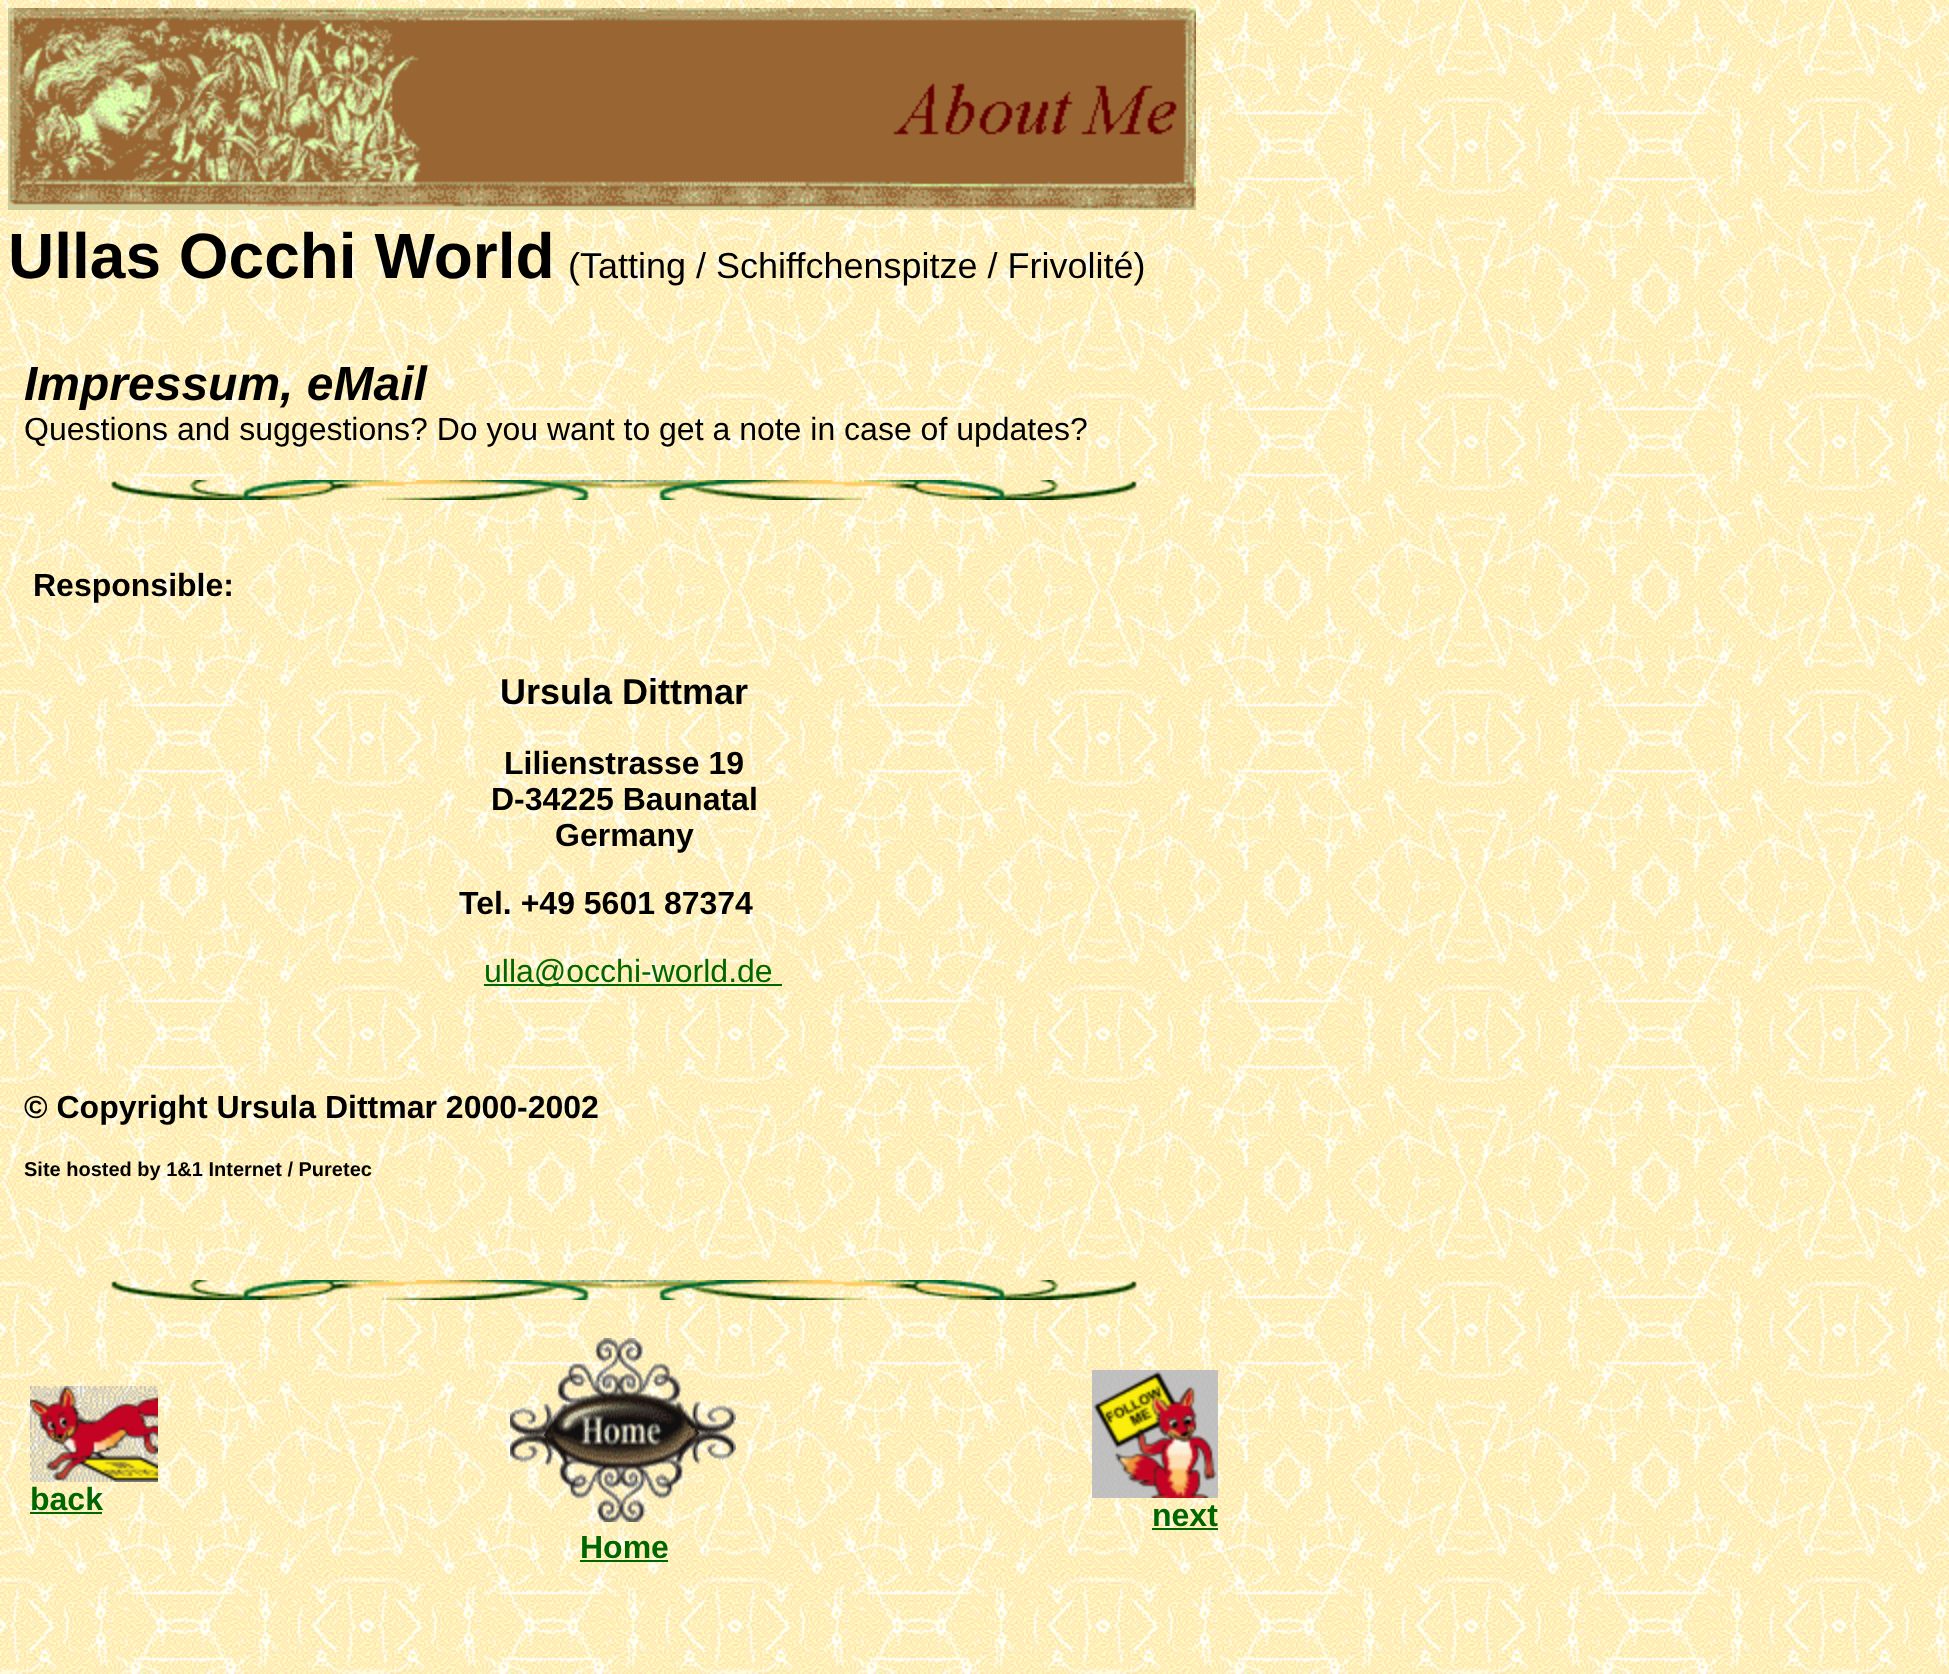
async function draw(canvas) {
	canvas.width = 1949;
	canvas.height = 1674;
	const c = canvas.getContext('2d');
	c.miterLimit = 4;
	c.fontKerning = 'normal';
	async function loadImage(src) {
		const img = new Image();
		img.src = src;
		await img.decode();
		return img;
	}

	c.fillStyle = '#fff';
	c.fillRect(0, 0, 1949, 1674);
	c.drawImage(await loadImage('img1.png'), 0, 0, 1949, 1674);
	c.drawImage(await loadImage('img2.png'), 8, 8, 1188, 202);
	c.font = 'bold 64px Liberation Sans';
	c.fillStyle = '#000';
	c.fillText('Ullas Occhi World', 8, 278);
	c.font = '36px Liberation Sans';
	c.fillText('(Tatting / Schiffchenspitze / Frivolité)', 568, 278);
	c.font = 'italic bold 48px Liberation Sans';
	c.fillText('Impressum, eMail', 24, 400);
	c.font = '32px Liberation Sans';
	c.fillText('Questions and suggestions? Do you want to get a note in case of updates?', 24, 440);
	c.drawImage(await loadImage('img3.png'), 111, 480, 1026, 20);
	c.font = 'bold 32px Liberation Sans';
	c.fillText('Responsible:', 33, 596);
	c.font = 'bold 36px Liberation Sans';
	c.fillText('Ursula Dittmar', 500, 704);
	c.font = 'bold 32px Liberation Sans';
	for (const [text, x, y] of [
		['Lilienstrasse 19', 504, 774],
		['D-34225 Baunatal', 491, 810],
		['Germany', 555, 846],
		['Tel. +49 5601 87374', 459, 914],
	]) {
		c.fillText(text, x, y);
	}
	c.fillStyle = '#060';
	c.fillRect(484, 984, 298, 2);
	c.font = '32px Liberation Sans';
	c.fillText('ulla@occhi-world.de', 484, 982);
	c.font = 'bold 32px Liberation Sans';
	c.fillStyle = '#000';
	c.fillText('© Copyright Ursula Dittmar 2000-2002', 24, 1118);
	c.font = 'bold 20px Liberation Sans';
	c.fillText('Site hosted by 1&1 Internet / Puretec', 24, 1176);
	c.drawImage(await loadImage('img4.png'), 111, 1280, 1026, 20);
	c.drawImage(await loadImage('img5.png'), 30, 1386, 128, 96);
	c.font = 'bold 32px Liberation Sans';
	c.fillStyle = '#060';
	c.fillText('back', 30, 1510);
	c.fillRect(30, 1512, 72, 2);
	c.drawImage(await loadImage('img6.png'), 1092, 1370, 126, 128);
	c.fillText('next', 1152, 1526);
	c.fillRect(1152, 1528, 66, 2);
	c.drawImage(await loadImage('img7.png'), 510, 1338, 226, 184);
	c.fillText('Home', 580, 1558);
	c.fillRect(580, 1560, 88, 2);
}

draw(document.querySelector('canvas'));
